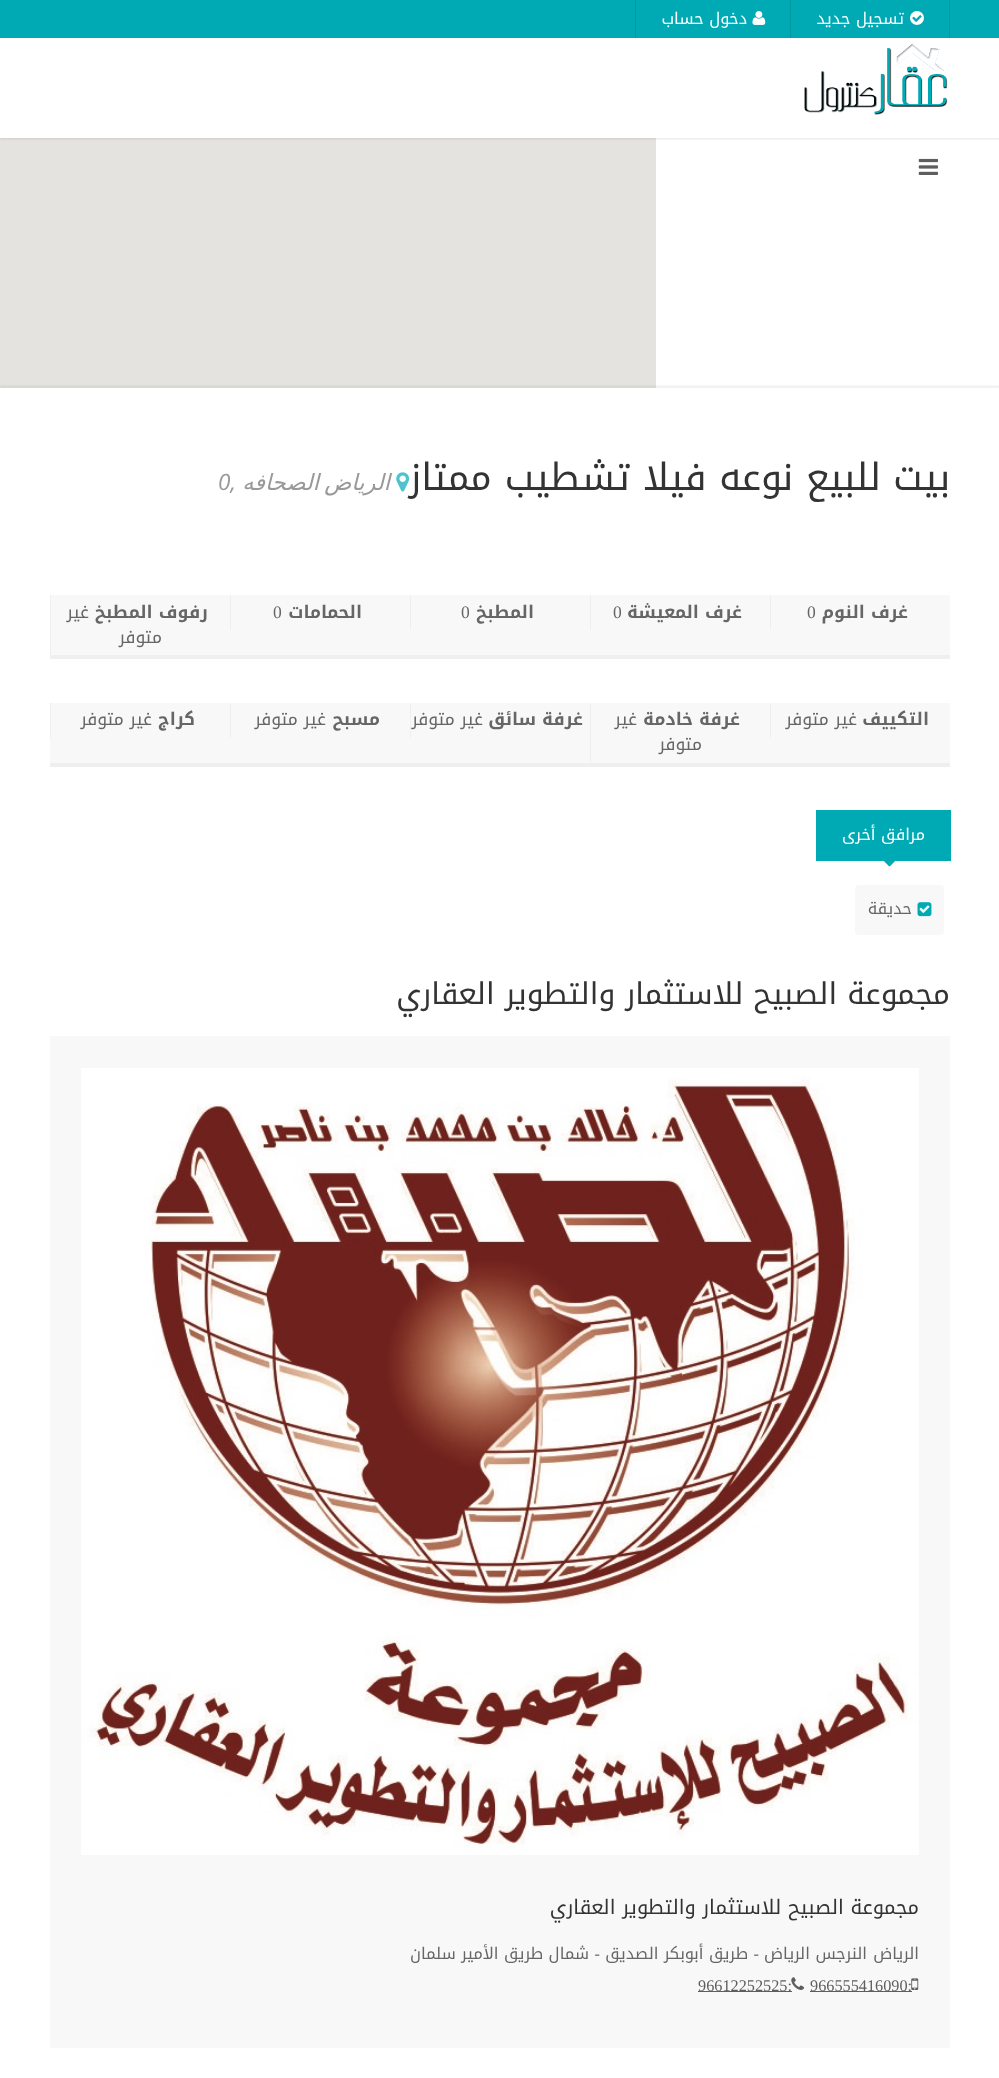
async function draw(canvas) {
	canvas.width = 999;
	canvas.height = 2078;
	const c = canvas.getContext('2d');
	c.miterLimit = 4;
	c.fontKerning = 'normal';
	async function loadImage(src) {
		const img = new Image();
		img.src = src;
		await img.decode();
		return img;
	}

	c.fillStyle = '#fff';
	c.fillRect(0, 0, 999, 2078);
	c.fillStyle = '#00aab5';
	c.fillRect(0, 0, 999, 38);
	c.fillStyle = '#0099a3';
	c.fillRect(949, 0, 1, 38);
	c.drawImage(await loadImage('img1.png'), 910, 11, 14, 14);
	c.direction = 'rtl';
	c.font = '16.25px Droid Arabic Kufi';
	c.fillStyle = '#fff';
	c.fillText('تسجيل جديد', 904, 24);
	c.fillStyle = '#0099a3';
	c.fillRect(790, 0, 1, 38);
	c.fillRect(635, 0, 1, 38);
	c.drawImage(await loadImage('img2.png'), 752, 11, 14, 14);
	c.fillStyle = '#fff';
	c.fillText('دخول حساب', 747, 24);
	c.fillStyle = '#e5e3df';
	c.fillRect(0, 138, 656, 250);
	c.save();
	c.beginPath();
	c.moveTo(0, 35);
	c.lineTo(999, 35);
	c.lineTo(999, 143);
	c.lineTo(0, 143);
	c.closePath();
	c.moveTo(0, 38);
	c.lineTo(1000, 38);
	c.lineTo(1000, 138);
	c.lineTo(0, 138);
	c.closePath();
	c.clip('evenodd');
	c.fillStyle = '#0000001a';
	c.filter = 'blur(1px)';
	c.beginPath();
	c.rect(0, 39, 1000, 100);
	c.fill();
	c.filter = 'none';
	c.restore();
	c.drawImage(await loadImage('img3.png'), 804, 43, 144, 72);
	c.drawImage(await loadImage('img4.png'), 918, 158, 21, 17);
	c.save();
	c.beginPath();
	c.rect(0, 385, 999, 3);
	c.clip();
	c.fillStyle = '#0000000d';
	c.filter = 'blur(1px)';
	c.beginPath();
	c.rect(0, 385, 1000, 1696);
	c.fill();
	c.filter = 'none';
	c.restore();
	c.font = '37.5px Droid Arabic Kufi';
	c.fillStyle = '#333';
	for (const [text, x, y] of [
		['بيت', 950, 490],
		['للبيع', 881, 490],
		['نوعه فيلا', 793, 490],
		['تشطيب ممتاز', 630, 490],
	]) {
		c.fillText(text, x, y);
	}
	c.drawImage(await loadImage('img5.png'), 396, 472, 14, 20);
	c.font = 'italic 22.5px DejaVu Sans';
	c.fillStyle = '#999';
	c.fillText('الرياض', 390, 490);
	c.fillText('الصحافه', 319, 490);
	c.direction = 'ltr';
	c.font = 'italic 22.5px Open Sans';
	c.fillText('0', 218, 490);
	c.direction = 'rtl';
	c.fillText(',', 236, 490);
	for (const [x, y, w, h, color] of [
		[51, 595, 899, 60, '#f8f8f8'],
		[50, 655, 900, 4, '#efefef'],
		[770, 595, 1, 35, '#efefef'],
	]) {
		c.fillStyle = color;
		c.fillRect(x, y, w, h);
	}
	c.font = 'bold 17.5px Droid Arabic Kufi';
	c.fillStyle = '#666';
	c.fillText('غرف النوم', 908, 618);
	c.direction = 'ltr';
	c.font = '17.5px Liberation Serif';
	c.fillText('0', 807, 618);
	c.fillStyle = '#efefef';
	c.fillRect(590, 595, 1, 35);
	c.direction = 'rtl';
	c.font = 'bold 17.5px Droid Arabic Kufi';
	c.fillStyle = '#666';
	c.fillText('غرف المعيشة', 742, 618);
	c.direction = 'ltr';
	c.font = '17.5px Liberation Serif';
	c.fillText('0', 613, 618);
	c.fillStyle = '#efefef';
	c.fillRect(410, 595, 1, 35);
	c.direction = 'rtl';
	c.font = 'bold 17.5px Droid Arabic Kufi';
	c.fillStyle = '#666';
	c.fillText('المطبخ', 534, 618);
	c.direction = 'ltr';
	c.font = '17.5px Liberation Serif';
	c.fillText('0', 461, 618);
	c.fillStyle = '#efefef';
	c.fillRect(230, 595, 1, 35);
	c.direction = 'rtl';
	c.font = 'bold 17.5px Droid Arabic Kufi';
	c.fillStyle = '#666';
	c.fillText('الحمامات', 362, 618);
	c.direction = 'ltr';
	c.font = '17.5px Liberation Serif';
	c.fillText('0', 273, 618);
	c.fillStyle = '#efefef';
	c.fillRect(50, 595, 1, 60);
	c.direction = 'rtl';
	c.font = 'bold 17.5px Droid Arabic Kufi';
	c.fillStyle = '#666';
	c.fillText('رفوف المطبخ', 208, 618);
	c.font = '17.5px Droid Arabic Kufi';
	c.fillText('غير', 89, 618);
	c.fillText('متوفر', 162, 643);
	for (const [x, y, w, h, color] of [
		[50, 703, 900, 60, '#f8f8f8'],
		[50, 763, 900, 4, '#efefef'],
		[770, 703, 1, 35, '#efefef'],
	]) {
		c.fillStyle = color;
		c.fillRect(x, y, w, h);
	}
	c.font = 'bold 17.5px Droid Arabic Kufi';
	c.fillStyle = '#666';
	c.fillText('التكييف', 929, 725);
	c.font = '17.5px Droid Arabic Kufi';
	c.fillText('غير متوفر', 857, 725);
	c.fillStyle = '#efefef';
	c.fillRect(590, 703, 1, 60);
	c.font = 'bold 17.5px Droid Arabic Kufi';
	c.fillStyle = '#666';
	c.fillText('غرفة خادمة', 740, 725);
	c.font = '17.5px Droid Arabic Kufi';
	c.fillText('غير', 637, 725);
	c.fillText('متوفر', 702, 750);
	c.fillStyle = '#efefef';
	c.fillRect(410, 703, 1, 35);
	c.font = 'bold 17.5px Droid Arabic Kufi';
	c.fillStyle = '#666';
	c.fillText('غرفة سائق', 583, 725);
	c.font = '17.5px Droid Arabic Kufi';
	c.fillText('غير متوفر', 483, 725);
	c.fillStyle = '#efefef';
	c.fillRect(230, 703, 1, 35);
	c.font = 'bold 17.5px Droid Arabic Kufi';
	c.fillStyle = '#666';
	c.fillText('مسبح', 380, 725);
	c.font = '17.5px Droid Arabic Kufi';
	c.fillText('غير متوفر', 326, 725);
	c.fillStyle = '#efefef';
	c.fillRect(50, 703, 1, 35);
	c.font = 'bold 17.5px Droid Arabic Kufi';
	c.fillStyle = '#666';
	c.fillText('كراج', 195, 725);
	c.font = '17.5px Droid Arabic Kufi';
	c.fillText('غير متوفر', 152, 725);
	c.fillStyle = '#00aab5';
	c.fillRect(816, 810, 135, 51);
	c.font = '16.25px Droid Arabic Kufi';
	c.fillStyle = '#fff';
	c.fillText('مرافق أخرى', 925, 840);
	c.drawImage(await loadImage('img6.png'), 884, 861, 11, 6);
	c.fillStyle = '#f8f8f8';
	c.beginPath();
	c.roundRect(855, 885, 89, 50, 4);
	c.fill();
	c.drawImage(await loadImage('img7.png'), 917, 902, 15, 15);
	c.fillStyle = '#666';
	c.fillText('حديقة', 912, 914);
	c.font = '30px Droid Arabic Kufi';
	c.fillStyle = '#333';
	c.fillText('مجموعة الصبيح للاستثمار والتطوير العقاري', 950, 1004);
	c.fillStyle = '#f8f8f8';
	c.fillRect(50, 1036, 900, 1012);
	c.drawImage(await loadImage('img8.png'), 81, 1068, 838, 787);
	c.font = '20px Droid Arabic Kufi';
	c.fillStyle = '#333';
	c.fillText('مجموعة الصبيح للاستثمار والتطوير العقاري', 919, 1914);
	c.font = '16.25px Droid Arabic Kufi';
	c.fillStyle = '#666';
	c.fillText('الرياض', 919, 1959);
	c.fillText('النرجس الرياض', 867, 1959);
	c.font = '16.25px Liberation Serif';
	c.fillText('-', 759, 1959);
	c.font = '16.25px Droid Arabic Kufi';
	c.fillText('طريق أبوبكر الصديق', 748, 1959);
	c.font = '16.25px Liberation Serif';
	c.fillText('-', 600, 1959);
	c.font = '16.25px Droid Arabic Kufi';
	c.fillText('شمال طريق الأمير سلمان', 589, 1959);
	c.drawImage(await loadImage('img9.png'), 911, 1978, 8, 12);
	c.fillStyle = '#5e5e5e';
	c.fillRect(810, 1991, 102, 1);
	c.direction = 'ltr';
	c.font = '16.25px Liberation Serif';
	c.fillText('966555416090:', 810, 1991);
	c.drawImage(await loadImage('img10.png'), 791, 1977, 13, 13);
	c.fillRect(698, 1991, 94, 1);
	c.fillText('96612252525:', 698, 1991);
}

draw(document.querySelector('canvas'));
